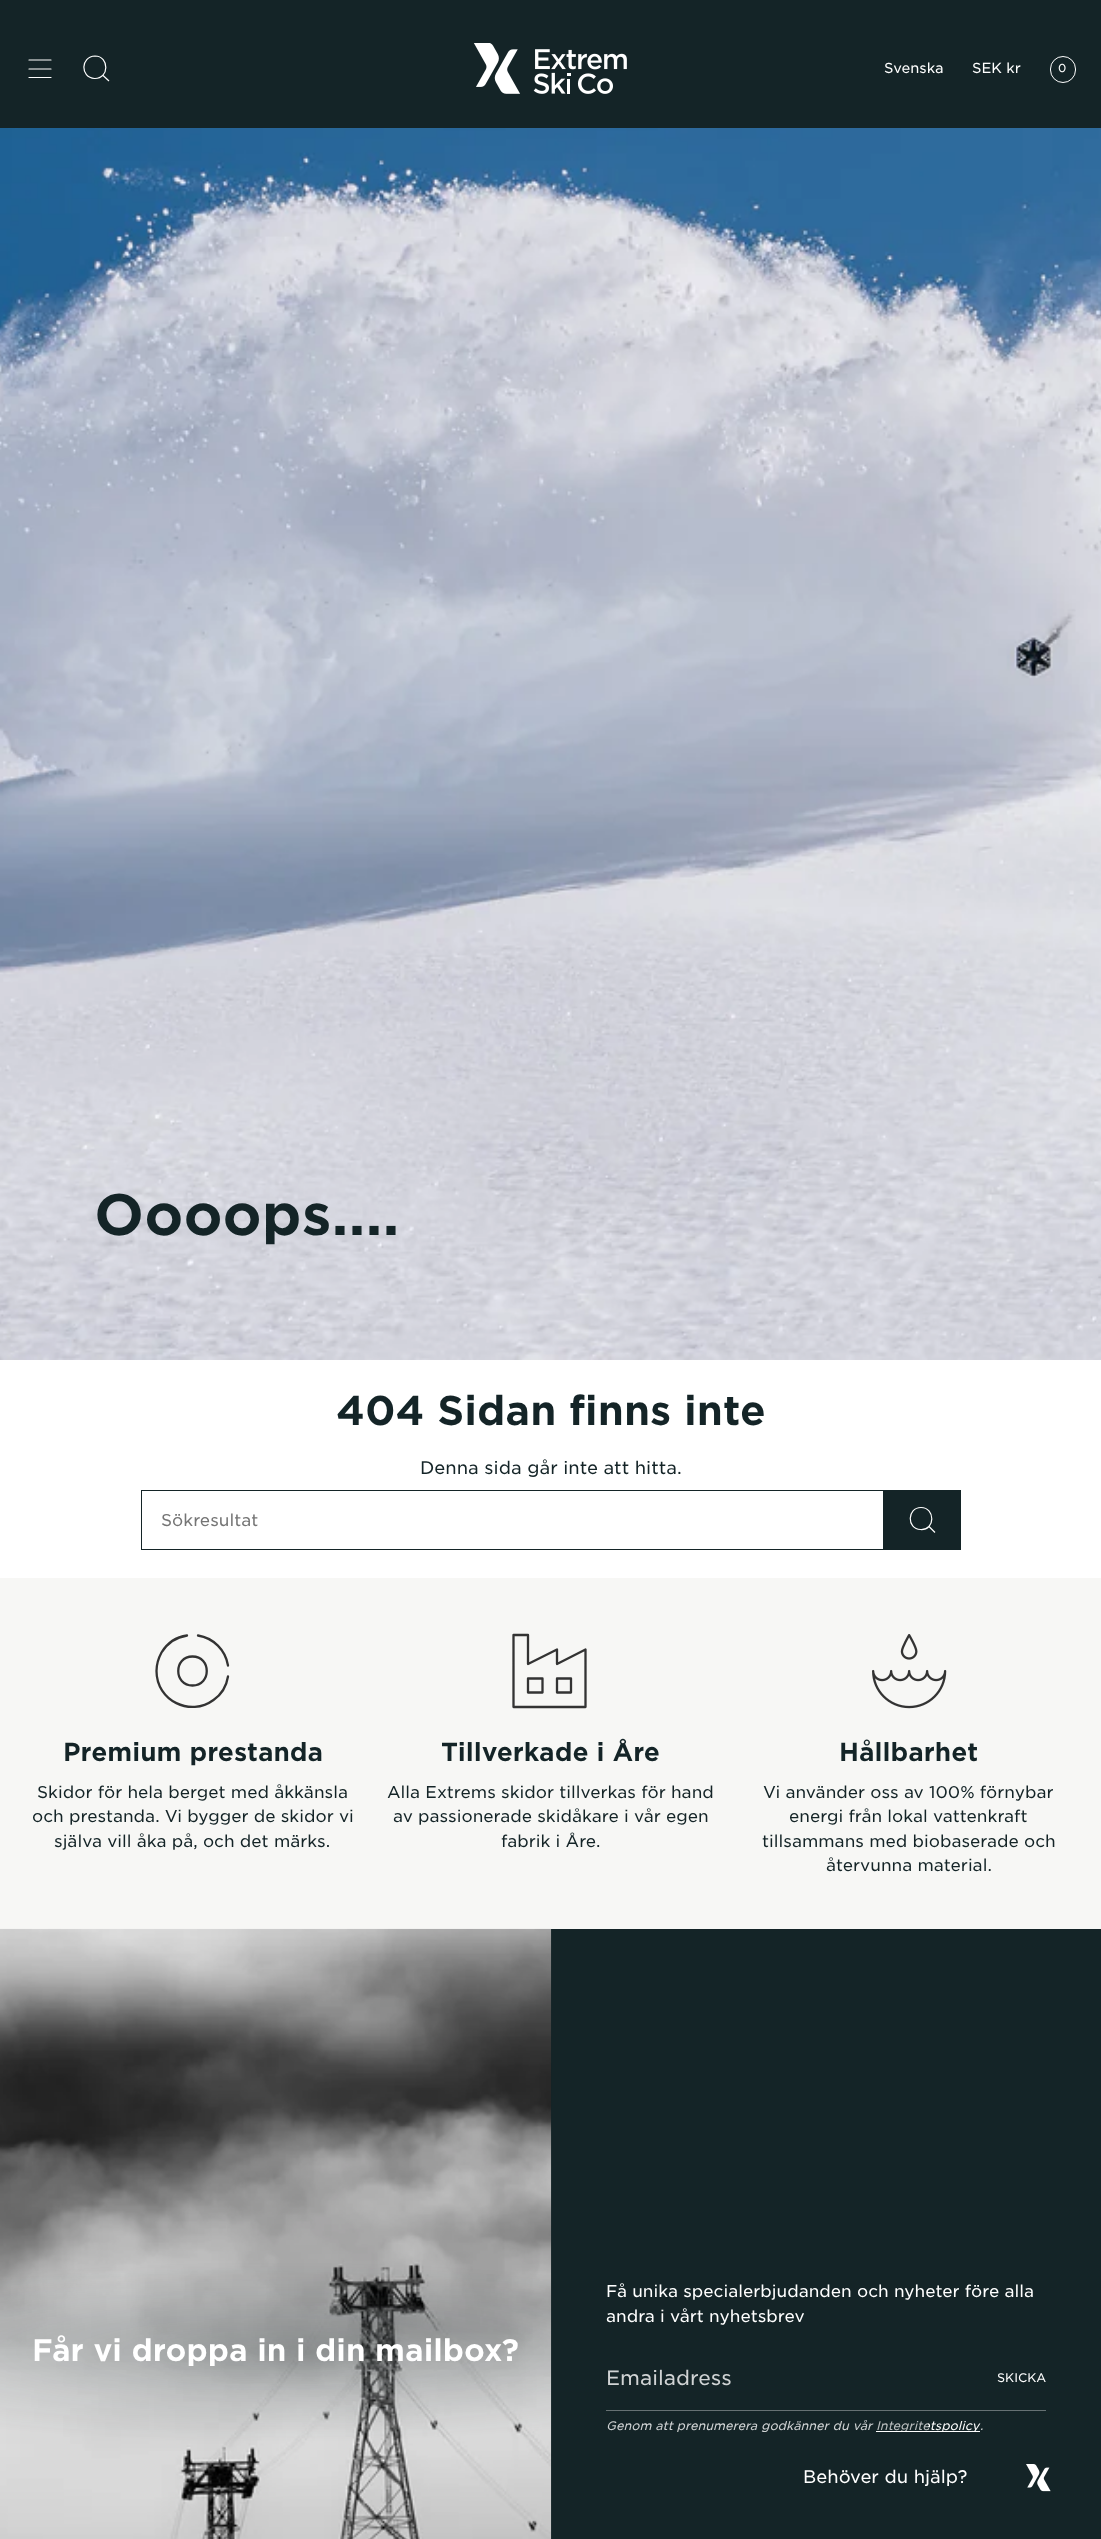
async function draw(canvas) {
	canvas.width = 1101;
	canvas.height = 2539;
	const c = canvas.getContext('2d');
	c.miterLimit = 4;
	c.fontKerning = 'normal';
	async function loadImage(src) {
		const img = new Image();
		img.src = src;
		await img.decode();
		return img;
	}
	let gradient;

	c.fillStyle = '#fff';
	c.fillRect(0, 0, 1101, 2539);
	c.fillStyle = '#142427';
	c.fillRect(0, 0, 1101, 128);
	c.beginPath();
	c.moveTo(29, 60);
	c.lineTo(51, 60);
	c.moveTo(29, 69);
	c.lineTo(51, 69);
	c.moveTo(29, 77.5);
	c.lineTo(51, 77.5);
	c.strokeStyle = '#fff';
	c.lineWidth = 1.2;
	c.lineCap = 'round';
	c.lineJoin = 'round';
	c.stroke();
	c.beginPath();
	c.moveTo(95, 56);
	c.bezierCurveTo(109.5, 56, 109.5, 79, 94.5, 78.5);
	c.bezierCurveTo(80, 77.5, 80.5, 56.5, 95, 56);
	c.closePath();
	c.moveTo(102.5, 75);
	c.lineTo(109, 81);
	c.lineCap = 'butt';
	c.lineJoin = 'miter';
	c.stroke();
	c.drawImage(await loadImage('img1.png'), 473, 43, 154, 51);
	c.font = '14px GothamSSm';
	c.fillStyle = '#fff';
	c.fillText('Svenska', 884, 73);
	c.fillText('SEK kr', 972, 73);
	c.beginPath();
	c.roundRect(1050.5, 56.5, 25, 26, 12.5);
	c.lineWidth = 1;
	c.stroke();
	c.font = '11px GothamSSm';
	c.fillText('0', 1058, 72);
	c.drawImage(await loadImage('img2.png'), 0, 128, 1101, 1232);
	c.font = 'bold 56.25px GothamSSm';
	c.fillStyle = '#142427';
	c.fillText('Oooops....', 94, 1235);
	c.font = 'bold 40px GothamSSm';
	c.fillText('404 Sidan finns inte', 336, 1425);
	c.font = '17.5px GothamSSm';
	c.fillText('Denna sida går inte att hitta.', 420, 1474);
	c.strokeStyle = '#142427';
	c.strokeRect(141.5, 1490.5, 742, 59);
	c.font = '16.4px GothamSSm';
	c.fillStyle = '#757575';
	c.fillText('Sökresultat', 161, 1526);
	c.fillStyle = '#142427';
	c.fillRect(884, 1490, 77, 60);
	c.beginPath();
	c.moveTo(921, 1507.5);
	c.bezierCurveTo(935.5, 1507.5, 935.5, 1530.5, 920.5, 1529.5);
	c.bezierCurveTo(906.5, 1529, 907, 1507.5, 921, 1507.5);
	c.closePath();
	c.moveTo(929, 1526.5);
	c.lineTo(935, 1532.5);
	c.strokeStyle = '#fff';
	c.lineWidth = 1.2;
	c.stroke();
	c.fillStyle = '#f7f7f5';
	c.fillRect(0, 1578, 1101, 351);
	c.beginPath();
	c.moveTo(228, 1665.5);
	c.bezierCurveTo(225.5, 1650, 213.5, 1638, 198, 1635.5);
	c.moveTo(187, 1635.5);
	c.bezierCurveTo(176.5, 1637, 167, 1643.5, 161.5, 1652.5);
	c.bezierCurveTo(158.5, 1658, 156.5, 1664.5, 156.5, 1671);
	c.bezierCurveTo(156.5, 1701, 190.5, 1717, 213.5, 1700);
	c.bezierCurveTo(221.5, 1694.5, 226.5, 1686, 228, 1676.5);
	c.strokeStyle = '#333';
	c.lineWidth = 2.3;
	c.lineCap = 'round';
	c.lineJoin = 'round';
	c.stroke();
	c.beginPath();
	c.moveTo(192.5, 1656.5);
	c.bezierCurveTo(173.5, 1656.5, 173.5, 1685.5, 192.5, 1685.5);
	c.bezierCurveTo(211.5, 1685.5, 211.5, 1656.5, 192.5, 1656.5);
	c.closePath();
	c.lineCap = 'butt';
	c.stroke();
	c.font = 'bold 25px GothamSSm';
	c.fillStyle = '#142427';
	c.fillText('Premium prestanda', 63, 1761);
	c.font = '16.4px GothamSSm';
	for (const [text, x, y] of [
		['Skidor för hela berget med åkkänsla', 37, 1798],
		['och prestanda. Vi bygger de skidor vi', 32, 1822],
		['själva vill åka på, och det märks.', 54, 1847],
	]) {
		c.fillText(text, x, y);
	}
	c.beginPath();
	c.moveTo(513.5, 1707);
	c.lineTo(513.5, 1635);
	c.lineTo(528, 1635);
	c.lineTo(528, 1664);
	c.lineTo(557, 1649.5);
	c.lineTo(557, 1664);
	c.lineTo(585.5, 1649.5);
	c.lineTo(585.5, 1707);
	c.closePath();
	c.lineCap = 'round';
	c.stroke();
	c.beginPath();
	c.moveTo(542.5, 1678.5);
	c.lineTo(528, 1678.5);
	c.lineTo(528, 1692.5);
	c.lineTo(542.5, 1692.5);
	c.closePath();
	c.moveTo(571, 1678.5);
	c.lineTo(557, 1678.5);
	c.lineTo(557, 1692.5);
	c.lineTo(571, 1692.5);
	c.closePath();
	c.stroke();
	c.font = 'bold 25px GothamSSm';
	c.fillText('Tillverkade i Åre', 441, 1761);
	c.font = '16.4px GothamSSm';
	for (const [text, x, y] of [
		['Alla Extrems skidor tillverkas för hand', 387, 1798],
		['av passionerade skidåkare i vår egen', 393, 1822],
		['fabrik i Åre.', 501, 1847],
	]) {
		c.fillText(text, x, y);
	}
	c.drawImage(await loadImage('img3.png'), 872, 1634, 75, 75);
	c.font = 'bold 25px GothamSSm';
	c.fillText('Hållbarhet', 839, 1761);
	c.font = '16.4px GothamSSm';
	for (const [text, x, y] of [
		['Vi använder oss av 100% förnybar', 763, 1798],
		['energi från lokal vattenkraft', 789, 1822],
		['tillsammans med biobaserade och', 762, 1847],
		['återvunna material.', 826, 1871],
	]) {
		c.fillText(text, x, y);
	}
	c.fillRect(551, 1929, 550, 610);
	c.drawImage(await loadImage('img4.png'), 0, 1928, 552, 611);
	c.font = 'bold 30px GothamSSm';
	c.fillStyle = '#fff';
	c.fillText('Får vi droppa in i din mailbox?', 32, 2361);
	c.font = '16.4px GothamSSm';
	c.fillText('Få unika specialerbjudanden och nyheter före alla', 606, 2297);
	c.fillText('andra i vårt nyhetsbrev', 606, 2322);
	c.fillStyle = '#667173';
	c.fillRect(606, 2410, 440, 1);
	c.font = '20px GothamSSm';
	c.fillStyle = '#d0d3d4';
	c.fillText('Emailadress', 606, 2385);
	c.font = '12px GothamSSm';
	c.fillStyle = '#fff';
	c.fillText('SKICKA', 997, 2382);
	c.font = 'italic 12px GothamSSm';
	c.fillStyle = '#d0d3d4';
	c.fillText('Genom att prenumerera godkänner du vår', 606, 2430);
	c.fillText('.', 980, 2430);
	gradient = c.createLinearGradient(876, 2426, 980, 2426);
	gradient.addColorStop(0, '#b9bdbe');
	gradient.addColorStop(0.5, '#b9bdbe');
	gradient.addColorStop(0.5, '#fff');
	gradient.addColorStop(1, '#fff');
	c.fillStyle = gradient;
	c.fillText('Integritetspolicy', 876, 2430);
	c.fillStyle = '#fff';
	c.fillRect(876, 2431, 104, 1);
	c.font = '17.5px GothamSSm';
	c.fillText('Behöver du hjälp?', 803, 2483);
	c.drawImage(await loadImage('img5.png'), 1026, 2464, 25, 28);
}

draw(document.querySelector('canvas'));
